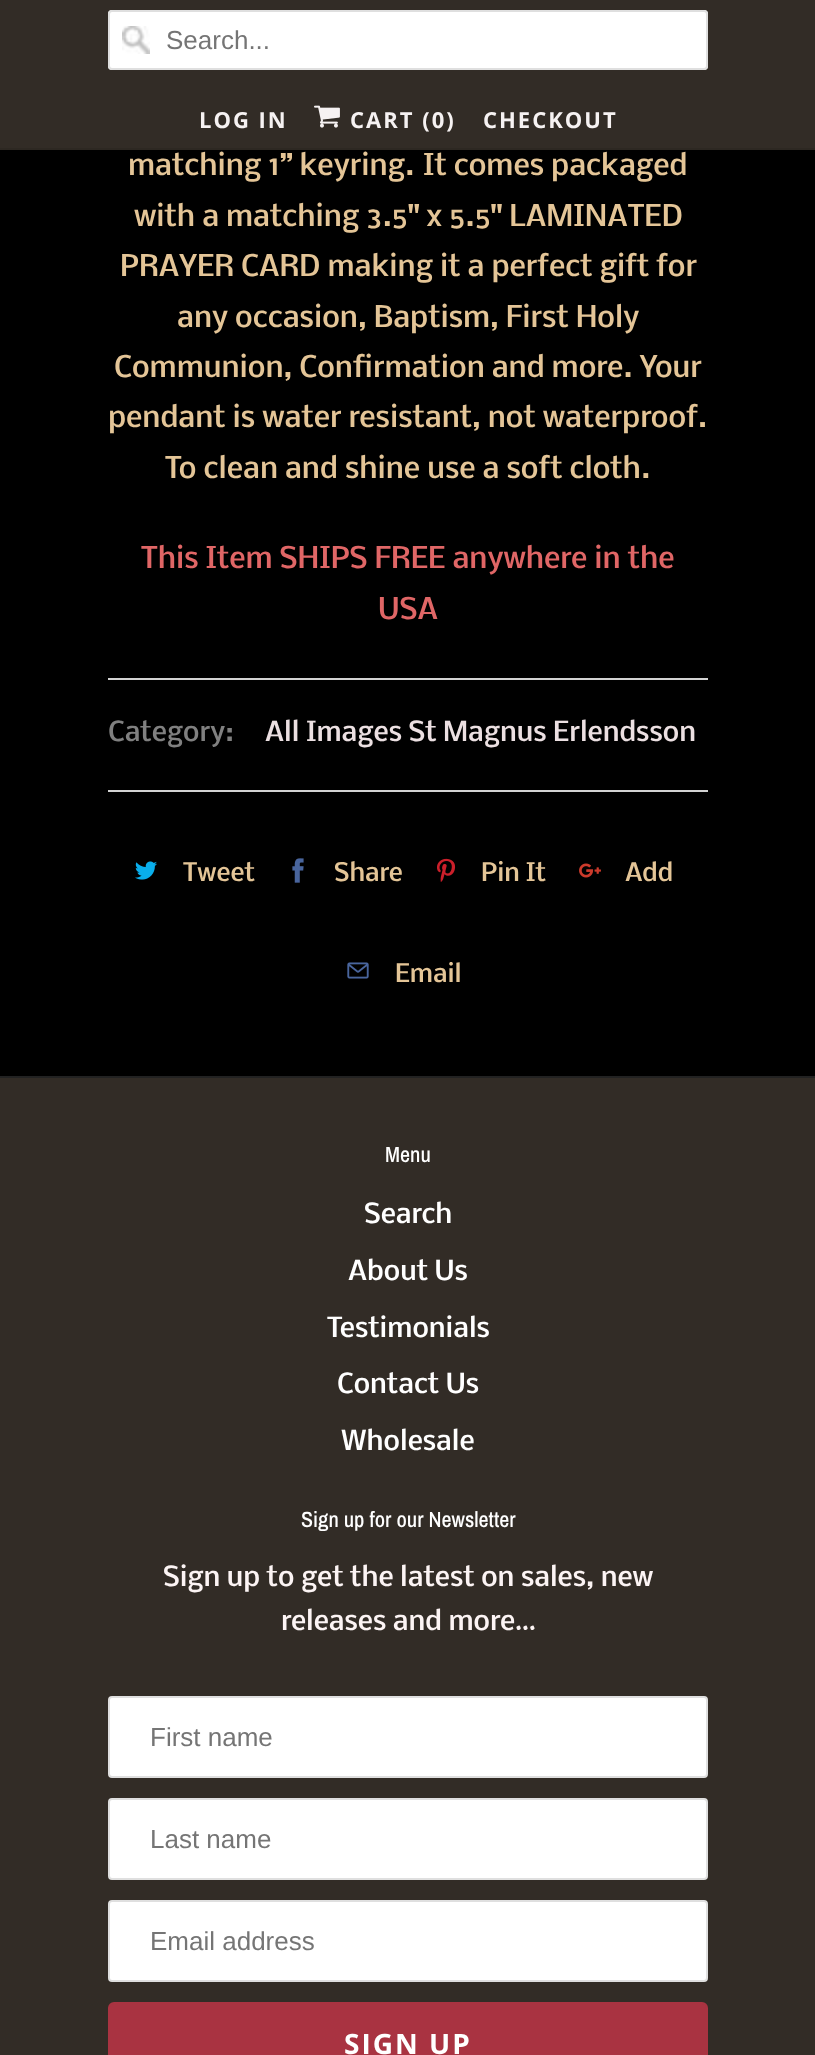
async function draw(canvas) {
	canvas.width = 815;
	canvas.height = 2055;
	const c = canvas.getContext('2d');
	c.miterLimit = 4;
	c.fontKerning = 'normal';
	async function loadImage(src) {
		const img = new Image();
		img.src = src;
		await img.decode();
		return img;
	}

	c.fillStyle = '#000';
	c.fillRect(0, 0, 815, 2055);
	c.fillStyle = '#00000040';
	c.filter = 'blur(3px)';
	c.beginPath();
	c.rect(0, 2, 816, 150);
	c.fill();
	c.filter = 'none';
	c.fillStyle = '#322c26';
	c.fillRect(0, 0, 815, 148);
	c.fillStyle = '#2d2822';
	c.fillRect(0, 148, 815, 2);
	c.fillStyle = '#fff';
	c.beginPath();
	c.roundRect(108, 10, 600, 60, 4);
	c.fill();
	c.drawImage(await loadImage('img1.png'), 122, 26, 28, 28);
	c.beginPath();
	c.roundRect(109, 11, 598, 58, 3);
	c.strokeStyle = '#dfdfdf';
	c.lineWidth = 2;
	c.stroke();
	c.font = '26px Liberation Sans';
	c.fillStyle = '#757575';
	c.fillText('Search...', 166, 49);
	c.letterSpacing = '2px';
	c.font = 'bold 22px Open Sans';
	c.fillStyle = '#f6f2f2';
	c.fillText('LOG IN', 199, 128);
	c.drawImage(await loadImage('img2.png'), 314, 105, 26, 23);
	c.fillText('CART (0)', 350, 128);
	c.fillText('CHECKOUT', 483, 128);
	c.letterSpacing = '0px';
	c.font = '500 28px Nobile';
	c.fillStyle = '#e4c597';
	for (const [text, x, y] of [
		['matching 1” keyring.', 128, 175],
		['It comes packaged', 423, 175],
		['with a matching 3.5" x 5.5" LAMINATED', 134, 226],
		['PRAYER CARD making it a perfect gift for', 120, 276],
		['any occasion, Baptism, First Holy', 177, 327],
		['Communion, Confirmation and more. Your', 114, 377],
		['pendant is water resistant, not waterproof.', 108, 427],
		['To clean and shine use a soft cloth.', 165, 478],
	]) {
		c.fillText(text, x, y);
	}
	c.fillStyle = '#e06666';
	c.fillText('This Item SHIPS FREE anywhere in the', 141, 568);
	c.fillText('USA', 378, 619);
	c.fillStyle = '#d3d3d3';
	c.fillRect(108, 678, 600, 2);
	c.font = '500 26px Nobile';
	c.fillStyle = '#808080';
	c.fillText('Category:', 108, 741);
	c.fillStyle = '#ece0e2';
	c.fillText('All Images St Magnus Erlendsson', 265, 741);
	c.fillStyle = '#d3d3d3';
	c.fillRect(108, 790, 600, 2);
	c.drawImage(await loadImage('img3.png'), 135, 861, 22, 19);
	c.font = '500 24px Nobile';
	c.fillStyle = '#e4c597';
	c.fillText('Tweet', 183, 881);
	c.drawImage(await loadImage('img4.png'), 292, 858, 12, 25);
	c.fillText('Share', 334, 881);
	c.drawImage(await loadImage('img5.png'), 437, 858, 19, 24);
	c.fillText('Pin It', 481, 881);
	c.drawImage(await loadImage('img6.png'), 579, 863, 22, 15);
	c.fillText('Add', 625, 881);
	c.drawImage(await loadImage('img7.png'), 347, 962, 22, 17);
	c.fillText('Email', 395, 982);
	c.fillStyle = '#322c26';
	c.fillRect(0, 1078, 815, 977);
	c.fillStyle = '#222';
	c.fillRect(0, 1076, 815, 2);
	c.font = '500 22px Archivo Narrow';
	c.fillStyle = '#fff';
	c.fillText('Menu', 385, 1162);
	c.font = '500 26px Nobile';
	for (const [text, x, y] of [
		['Search', 364, 1223],
		['About Us', 348, 1280],
		['Testimonials', 327, 1337],
		['Contact Us', 337, 1393],
		['Wholesale', 341, 1450],
	]) {
		c.fillText(text, x, y);
	}
	c.font = '500 22px Archivo Narrow';
	c.fillText('Sign up for our Newsletter', 301, 1527);
	c.font = '500 26px Nobile';
	c.fillStyle = '#fcf4f4';
	c.fillText('Sign up to get the latest on sales, new', 163, 1586);
	c.fillText('releases and more…', 281, 1630);
	c.fillStyle = '#fff';
	c.beginPath();
	c.roundRect(109, 1697, 598, 80, 3);
	c.fill();
	c.stroke();
	c.font = '26px Liberation Sans';
	c.fillStyle = '#757575';
	c.fillText('First name', 150, 1746);
	c.fillStyle = '#fff';
	c.beginPath();
	c.roundRect(109, 1799, 598, 80, 3);
	c.fill();
	c.stroke();
	c.fillStyle = '#757575';
	c.fillText('Last name', 150, 1848);
	c.fillStyle = '#fff';
	c.beginPath();
	c.roundRect(109, 1901, 598, 80, 3);
	c.fill();
	c.stroke();
	c.fillStyle = '#757575';
	c.fillText('Email address', 150, 1950);
	c.fillStyle = '#a93341';
	c.beginPath();
	c.roundRect(109, 2003, 598, 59, 5);
	c.fill();
	c.strokeStyle = '#a93341';
	c.stroke();
	c.letterSpacing = '2px';
	c.font = 'bold 28px Open Sans';
	c.fillStyle = '#fff';
	c.fillText('SIGN UP', 344, 2054);
}

draw(document.querySelector('canvas'));
